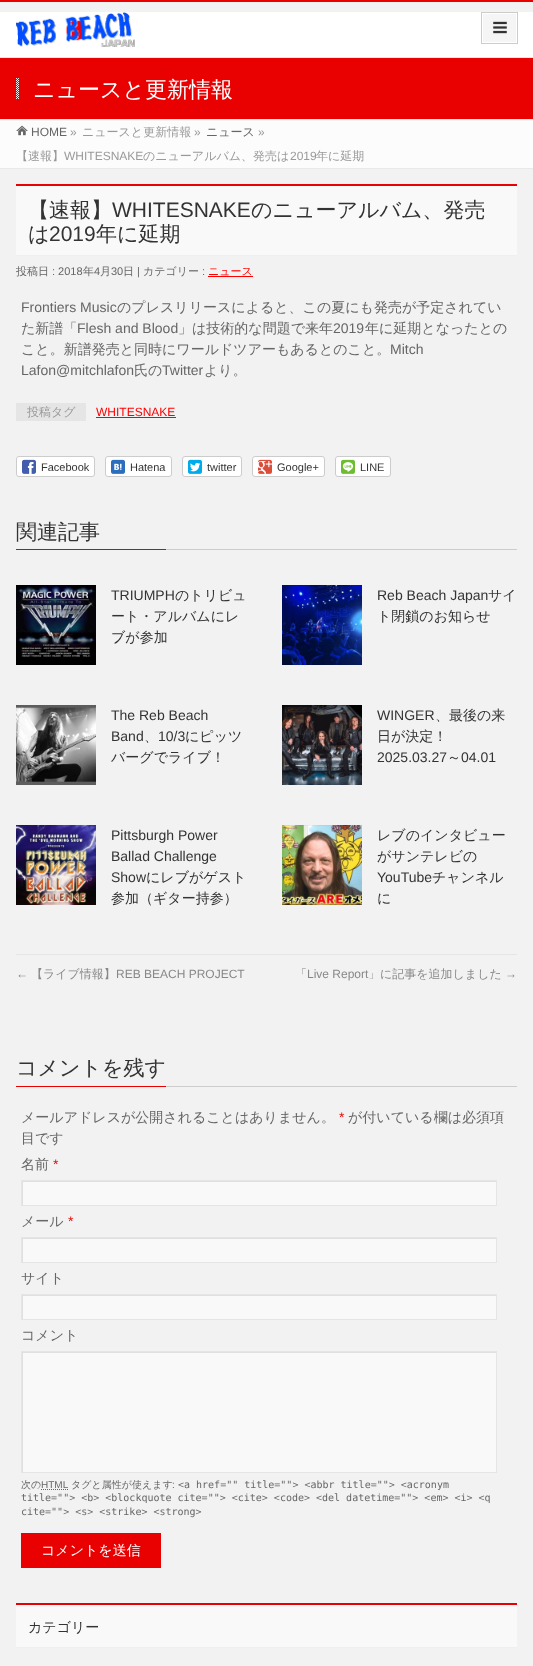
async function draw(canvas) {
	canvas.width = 533;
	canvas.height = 1666;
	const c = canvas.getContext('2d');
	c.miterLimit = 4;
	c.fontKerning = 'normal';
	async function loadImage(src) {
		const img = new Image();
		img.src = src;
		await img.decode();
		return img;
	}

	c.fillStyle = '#f2f2f2';
	c.fillRect(0, 0, 533, 1666);
	c.fillStyle = '#e90000';
	c.fillRect(0, 0, 533, 2);
	c.fillStyle = '#fff';
	c.fillRect(0, 12, 533, 45);
	c.drawImage(await loadImage('img1.png'), 16, 12, 119, 35);
	c.fillStyle = '#f5f5f5';
	c.fillRect(483, 14, 33, 28);
	c.strokeStyle = '#ccc';
	c.strokeRect(481.5, 12.5, 36, 31);
	c.drawImage(await loadImage('img2.png'), 493, 21, 14, 13);
	for (const [x, y, w, h, color] of [
		[0, 58, 533, 61, '#e90000'],
		[0, 57, 533, 1, '#e9e9e9'],
		[0, 119, 533, 1, '#e9e9e9'],
	]) {
		c.fillStyle = color;
		c.fillRect(x, y, w, h);
	}
	c.drawImage(await loadImage('img3.png'), 16, 78, 3, 21);
	c.font = '500 22px WenQuanYi Zen Hei';
	c.fillStyle = '#fff';
	c.fillText('ニュースと更新情報', 33, 97);
	c.fillStyle = '#fcfcfc';
	c.fillRect(0, 120, 533, 48);
	c.drawImage(await loadImage('img4.png'), 16, 125, 12, 11);
	c.font = '12px Liberation Sans';
	c.fillStyle = '#666';
	c.fillText('HOME', 31, 136);
	c.fillStyle = '#999';
	c.fillText('»', 70, 136);
	c.font = '500 12px WenQuanYi Zen Hei';
	c.fillText('ニュースと更新情報', 82, 136);
	c.font = '12px Liberation Sans';
	c.fillText('»', 194, 136);
	c.font = '500 12px WenQuanYi Zen Hei';
	c.fillStyle = '#666';
	c.fillText('ニュース', 206, 136);
	c.font = '12px Liberation Sans';
	c.fillStyle = '#999';
	c.fillText('»', 258, 136);
	c.font = '500 12px WenQuanYi Zen Hei';
	c.fillText('【速報】', 16, 160);
	c.font = '12px Liberation Sans';
	c.fillText('WHITESNAKE', 64, 160);
	c.font = '500 12px WenQuanYi Zen Hei';
	c.fillText('のニューアルバム、発売は', 143, 160);
	c.font = '12px Liberation Sans';
	c.fillText('2019', 290, 160);
	c.font = '500 12px WenQuanYi Zen Hei';
	c.fillText('年に延期', 316, 160);
	for (const [x, y, w, h, color] of [
		[0, 168, 533, 1, '#e9e9e9'],
		[16, 186, 501, 69, '#f9f9f9'],
		[16, 184, 501, 2, '#e90000'],
		[16, 255, 501, 1, '#efefef'],
	]) {
		c.fillStyle = color;
		c.fillRect(x, y, w, h);
	}
	c.font = '500 21px WenQuanYi Zen Hei';
	c.fillStyle = '#333';
	c.fillText('【速報】', 28, 217);
	c.font = '21px Liberation Sans';
	c.fillText('WHITESNAKE', 112, 217);
	c.font = '500 21px WenQuanYi Zen Hei';
	c.fillText('のニューアルバム、発売', 251, 217);
	c.fillText('は', 28, 241);
	c.font = '21px Liberation Sans';
	c.fillText('2019', 49, 241);
	c.font = '500 21px WenQuanYi Zen Hei';
	c.fillText('年に延期', 96, 241);
	c.font = '500 11px WenQuanYi Zen Hei';
	c.fillStyle = '#666';
	c.fillText('投稿日', 16, 275);
	c.font = '11px Liberation Sans';
	c.fillText(': 2018', 52, 275);
	c.font = '500 11px WenQuanYi Zen Hei';
	c.fillText('年', 83, 275);
	c.font = '11px Liberation Sans';
	c.fillText('4', 94, 275);
	c.font = '500 11px WenQuanYi Zen Hei';
	c.fillText('月', 100, 275);
	c.font = '11px Liberation Sans';
	c.fillText('30', 111, 275);
	c.font = '500 11px WenQuanYi Zen Hei';
	c.fillText('日', 123, 275);
	c.font = '11px Liberation Sans';
	c.fillText('|', 137, 275);
	c.font = '500 11px WenQuanYi Zen Hei';
	c.fillText('カテゴリー', 143, 275);
	c.font = '11px Liberation Sans';
	c.fillText(':', 202, 275);
	c.font = '500 11px WenQuanYi Zen Hei';
	c.fillStyle = '#f00';
	c.fillText('ニュース', 208, 275);
	c.fillRect(208, 276, 45, 1);
	c.font = '14px Liberation Sans';
	c.fillStyle = '#666';
	c.fillText('Frontiers Music', 21, 312);
	c.font = '500 14px WenQuanYi Zen Hei';
	c.fillText('のプレスリリースによると、この夏にも発売が予定されてい', 117, 312);
	c.fillText('た新譜「', 21, 333);
	c.font = '14px Liberation Sans';
	c.fillText('Flesh and Blood', 77, 333);
	c.font = '500 14px WenQuanYi Zen Hei';
	c.fillText('」は技術的な問題で来年', 178, 333);
	c.font = '14px Liberation Sans';
	c.fillText('2019', 333, 333);
	c.font = '500 14px WenQuanYi Zen Hei';
	c.fillText('年に延期となったとの', 365, 333);
	c.fillText('こと。新譜発売と同時にワールドツアーもあるとのこと。', 21, 354);
	c.font = '14px Liberation Sans';
	c.fillText('Mitch', 390, 354);
	c.fillText('Lafon@mitchlafon', 21, 375);
	c.font = '500 14px WenQuanYi Zen Hei';
	c.fillText('氏の', 134, 375);
	c.font = '14px Liberation Sans';
	c.fillText('Twitter', 162, 375);
	c.font = '500 14px WenQuanYi Zen Hei';
	c.fillText('より。', 204, 375);
	c.fillStyle = '#e5e5e5';
	c.fillRect(16, 403, 70, 18);
	c.font = '500 12px WenQuanYi Zen Hei';
	c.fillStyle = '#999';
	c.fillText('投稿タグ', 27, 416);
	c.font = '12px Liberation Sans';
	c.fillStyle = '#f00';
	c.fillText('WHITESNAKE', 96, 416);
	c.fillRect(96, 417, 80, 1);
	c.fillStyle = '#fff';
	c.beginPath();
	c.roundRect(16.5, 456.5, 78, 20, 2.5);
	c.fill();
	c.stroke();
	c.drawImage(await loadImage('img5.png'), 22, 459, 14, 15);
	c.font = '11px Liberation Sans';
	c.fillStyle = '#333';
	c.fillText('Facebook', 41, 471);
	c.fillStyle = '#fff';
	c.beginPath();
	c.roundRect(105.5, 456.5, 66, 20, 2.5);
	c.fill();
	c.stroke();
	c.drawImage(await loadImage('img6.png'), 111, 459, 14, 15);
	c.fillStyle = '#333';
	c.fillText('Hatena', 130, 471);
	c.fillStyle = '#fff';
	c.beginPath();
	c.roundRect(182.5, 456.5, 59, 20, 2.5);
	c.fill();
	c.stroke();
	c.drawImage(await loadImage('img7.png'), 188, 459, 14, 15);
	c.fillStyle = '#333';
	c.fillText('twitter', 207, 471);
	c.fillStyle = '#fff';
	c.beginPath();
	c.roundRect(252.5, 456.5, 72, 20, 2.5);
	c.fill();
	c.stroke();
	c.drawImage(await loadImage('img8.png'), 258, 459, 14, 15);
	c.fillStyle = '#333';
	c.fillText('Google+', 277, 471);
	c.fillStyle = '#fff';
	c.beginPath();
	c.roundRect(335.5, 456.5, 55, 20, 2.5);
	c.fill();
	c.stroke();
	c.drawImage(await loadImage('img9.png'), 341, 459, 14, 15);
	c.fillStyle = '#333';
	c.fillText('LINE', 360, 471);
	c.fillStyle = '#ccc';
	c.fillRect(166, 549, 351, 1);
	c.font = '500 21px WenQuanYi Zen Hei';
	c.fillStyle = '#333';
	c.fillText('関連記事', 16, 539);
	c.fillStyle = '#e90000';
	c.fillRect(16, 549, 150, 1);
	c.drawImage(await loadImage('img10.png'), 16, 585, 80, 80);
	c.font = '14px Liberation Sans';
	c.fillStyle = '#333';
	c.fillText('TRIUMPH', 111, 600);
	c.font = '500 14px WenQuanYi Zen Hei';
	for (const [text, x, y] of [
		['のトリビュ', 175, 600],
		['ート・アルバムにレ', 111, 621],
		['ブが参加', 111, 642],
	]) {
		c.fillText(text, x, y);
	}
	c.drawImage(await loadImage('img11.png'), 282, 585, 80, 80);
	c.font = '14px Liberation Sans';
	c.fillText('Reb Beach Japan', 377, 600);
	c.font = '500 14px WenQuanYi Zen Hei';
	c.fillText('サイ', 488, 600);
	c.fillText('ト閉鎖のお知らせ', 377, 621);
	c.drawImage(await loadImage('img12.png'), 16, 705, 80, 80);
	c.font = '14px Liberation Sans';
	c.fillText('The Reb Beach', 111, 720);
	c.fillText('Band', 111, 741);
	c.font = '500 14px WenQuanYi Zen Hei';
	c.fillText('、', 144, 741);
	c.font = '14px Liberation Sans';
	c.fillText('10/3', 158, 741);
	c.font = '500 14px WenQuanYi Zen Hei';
	c.fillText('にピッツ', 185, 741);
	c.fillText('バーグでライブ！', 111, 762);
	c.drawImage(await loadImage('img13.png'), 282, 705, 80, 80);
	c.font = '14px Liberation Sans';
	c.fillText('WINGER', 377, 720);
	c.font = '500 14px WenQuanYi Zen Hei';
	c.fillText('、最後の来', 435, 720);
	c.fillText('日が決定！', 377, 741);
	c.font = '14px Liberation Sans';
	c.fillText('2025.03.27', 377, 762);
	c.font = '500 14px WenQuanYi Zen Hei';
	c.fillText('～', 447, 762);
	c.font = '14px Liberation Sans';
	c.fillText('04.01', 461, 762);
	c.drawImage(await loadImage('img14.png'), 16, 825, 80, 80);
	for (const [text, x, y] of [
		['Pittsburgh Power', 111, 840],
		['Ballad Challenge', 111, 861],
		['Show', 111, 882],
	]) {
		c.fillText(text, x, y);
	}
	c.font = '500 14px WenQuanYi Zen Hei';
	c.fillText('にレブがゲスト', 146, 882);
	c.fillText('参加（ギター持参）', 111, 903);
	c.drawImage(await loadImage('img15.png'), 282, 825, 80, 80);
	c.fillText('レブのインタビュー', 377, 840);
	c.fillText('がサンテレビの', 377, 861);
	c.font = '14px Liberation Sans';
	c.fillText('YouTube', 377, 882);
	c.font = '500 14px WenQuanYi Zen Hei';
	c.fillText('チャンネル', 432, 882);
	c.fillText('に', 377, 903);
	c.fillStyle = '#e5e5e5';
	c.fillRect(16, 954, 501, 1);
	c.font = '12px Liberation Sans';
	c.fillStyle = '#888';
	c.fillText('←', 16, 978);
	c.font = '500 12px WenQuanYi Zen Hei';
	c.fillText('【ライブ情報】', 31, 978);
	c.font = '12px Liberation Sans';
	c.fillText('REB BEACH PROJECT', 116, 978);
	c.font = '500 12px WenQuanYi Zen Hei';
	c.fillText('「', 295, 978);
	c.font = '12px Liberation Sans';
	c.fillText('Live Report', 307, 978);
	c.font = '500 12px WenQuanYi Zen Hei';
	c.fillText('」に記事を追加しました', 368, 978);
	c.font = '12px Liberation Sans';
	c.fillText('→', 505, 978);
	c.fillStyle = '#ccc';
	c.fillRect(166, 1086, 351, 1);
	c.font = '500 21px WenQuanYi Zen Hei';
	c.fillStyle = '#333';
	c.fillText('コメントを残す', 16, 1075);
	c.fillStyle = '#e90000';
	c.fillRect(16, 1086, 150, 1);
	c.font = '500 14px WenQuanYi Zen Hei';
	c.fillStyle = '#666';
	c.fillText('メールアドレスが公開されることはありません。', 21, 1122);
	c.font = '14px Liberation Sans';
	c.fillStyle = '#e50000';
	c.fillText('*', 339, 1122);
	c.font = '500 14px WenQuanYi Zen Hei';
	c.fillStyle = '#666';
	for (const [text, x, y] of [
		['が付いている欄は必須項', 348, 1122],
		['目です', 21, 1143],
		['名前', 21, 1169],
	]) {
		c.fillText(text, x, y);
	}
	c.font = '14px Liberation Sans';
	c.fillStyle = '#e50000';
	c.fillText('*', 53, 1169);
	c.fillStyle = '#f9f9f9';
	c.fillRect(23, 1182, 473, 23);
	c.save();
	c.beginPath();
	c.rect(22, 1181, 474, 24);
	c.clip();
	c.fillStyle = '#e0e0e0';
	c.beginPath();
	c.moveTo(-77, 1082);
	c.lineTo(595, 1082);
	c.lineTo(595, 1304);
	c.lineTo(-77, 1304);
	c.closePath();
	c.moveTo(23, 1182);
	c.lineTo(497, 1182);
	c.lineTo(497, 1206);
	c.lineTo(23, 1206);
	c.closePath();
	c.fill('evenodd');
	c.restore();
	c.strokeStyle = '#e5e5e5';
	c.strokeRect(21.5, 1180.5, 475, 25);
	c.font = '500 14px WenQuanYi Zen Hei';
	c.fillStyle = '#666';
	c.fillText('メール', 21, 1226);
	c.font = '14px Liberation Sans';
	c.fillStyle = '#e50000';
	c.fillText('*', 68, 1226);
	c.fillStyle = '#f9f9f9';
	c.fillRect(23, 1239, 473, 23);
	c.save();
	c.beginPath();
	c.rect(22, 1238, 474, 24);
	c.clip();
	c.fillStyle = '#e0e0e0';
	c.beginPath();
	c.moveTo(-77, 1139);
	c.lineTo(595, 1139);
	c.lineTo(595, 1361);
	c.lineTo(-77, 1361);
	c.closePath();
	c.moveTo(23, 1239);
	c.lineTo(497, 1239);
	c.lineTo(497, 1263);
	c.lineTo(23, 1263);
	c.closePath();
	c.fill('evenodd');
	c.restore();
	c.strokeRect(21.5, 1237.5, 475, 25);
	c.font = '500 14px WenQuanYi Zen Hei';
	c.fillStyle = '#666';
	c.fillText('サイト', 21, 1283);
	c.fillStyle = '#f9f9f9';
	c.fillRect(23, 1296, 473, 23);
	c.save();
	c.beginPath();
	c.rect(22, 1295, 474, 24);
	c.clip();
	c.fillStyle = '#e0e0e0';
	c.beginPath();
	c.moveTo(-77, 1196);
	c.lineTo(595, 1196);
	c.lineTo(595, 1418);
	c.lineTo(-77, 1418);
	c.closePath();
	c.moveTo(23, 1296);
	c.lineTo(497, 1296);
	c.lineTo(497, 1320);
	c.lineTo(23, 1320);
	c.closePath();
	c.fill('evenodd');
	c.restore();
	c.strokeRect(21.5, 1294.5, 475, 25);
	c.fillStyle = '#666';
	c.fillText('コメント', 21, 1340);
	c.fillStyle = '#f9f9f9';
	c.fillRect(23, 1353, 473, 119);
	c.save();
	c.beginPath();
	c.rect(22, 1352, 474, 120);
	c.clip();
	c.fillStyle = '#e0e0e0';
	c.beginPath();
	c.moveTo(-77, 1253);
	c.lineTo(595, 1253);
	c.lineTo(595, 1571);
	c.lineTo(-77, 1571);
	c.closePath();
	c.moveTo(23, 1353);
	c.lineTo(497, 1353);
	c.lineTo(497, 1473);
	c.lineTo(23, 1473);
	c.closePath();
	c.fill('evenodd');
	c.restore();
	c.strokeRect(21.5, 1351.5, 475, 121);
	c.font = '500 10px WenQuanYi Zen Hei';
	c.fillStyle = '#666';
	c.fillText('次の', 21, 1488);
	c.font = '10px Liberation Sans';
	c.fillText('HTML', 41, 1488);
	c.beginPath();
	c.moveTo(41, 1489.5);
	c.lineTo(68, 1489.5);
	c.strokeStyle = '#666';
	c.setLineDash([1, 1]);
	c.stroke();
	c.font = '500 10px WenQuanYi Zen Hei';
	c.fillText('タグと属性が使えます', 71, 1488);
	c.font = '10px Liberation Sans';
	c.fillText(':', 172, 1488);
	c.font = '10px DejaVu Sans Mono';
	for (const [text, x, y] of [
		['<a href="" title=""> <abbr title=""> <acronym', 178, 1488],
		['title=""> <b> <blockquote cite=""> <cite> <code> <del datetime=""> <em> <i> <q', 21, 1501],
		['cite=""> <s> <strike> <strong>', 21, 1515],
	]) {
		c.fillText(text, x, y);
	}
	c.fillStyle = '#e90000';
	c.fillRect(21, 1533, 140, 35);
	c.font = '500 14px WenQuanYi Zen Hei';
	c.fillStyle = '#fff';
	c.fillText('コメントを送信', 41, 1555);
	for (const [x, y, w, h, color] of [
		[16, 1605, 501, 42, '#f9f9f9'],
		[16, 1603, 501, 2, '#e90000'],
		[16, 1647, 501, 1, '#efefef'],
	]) {
		c.fillStyle = color;
		c.fillRect(x, y, w, h);
	}
	c.fillStyle = '#333';
	c.fillText('カテゴリー', 28, 1632);
}

draw(document.querySelector('canvas'));
